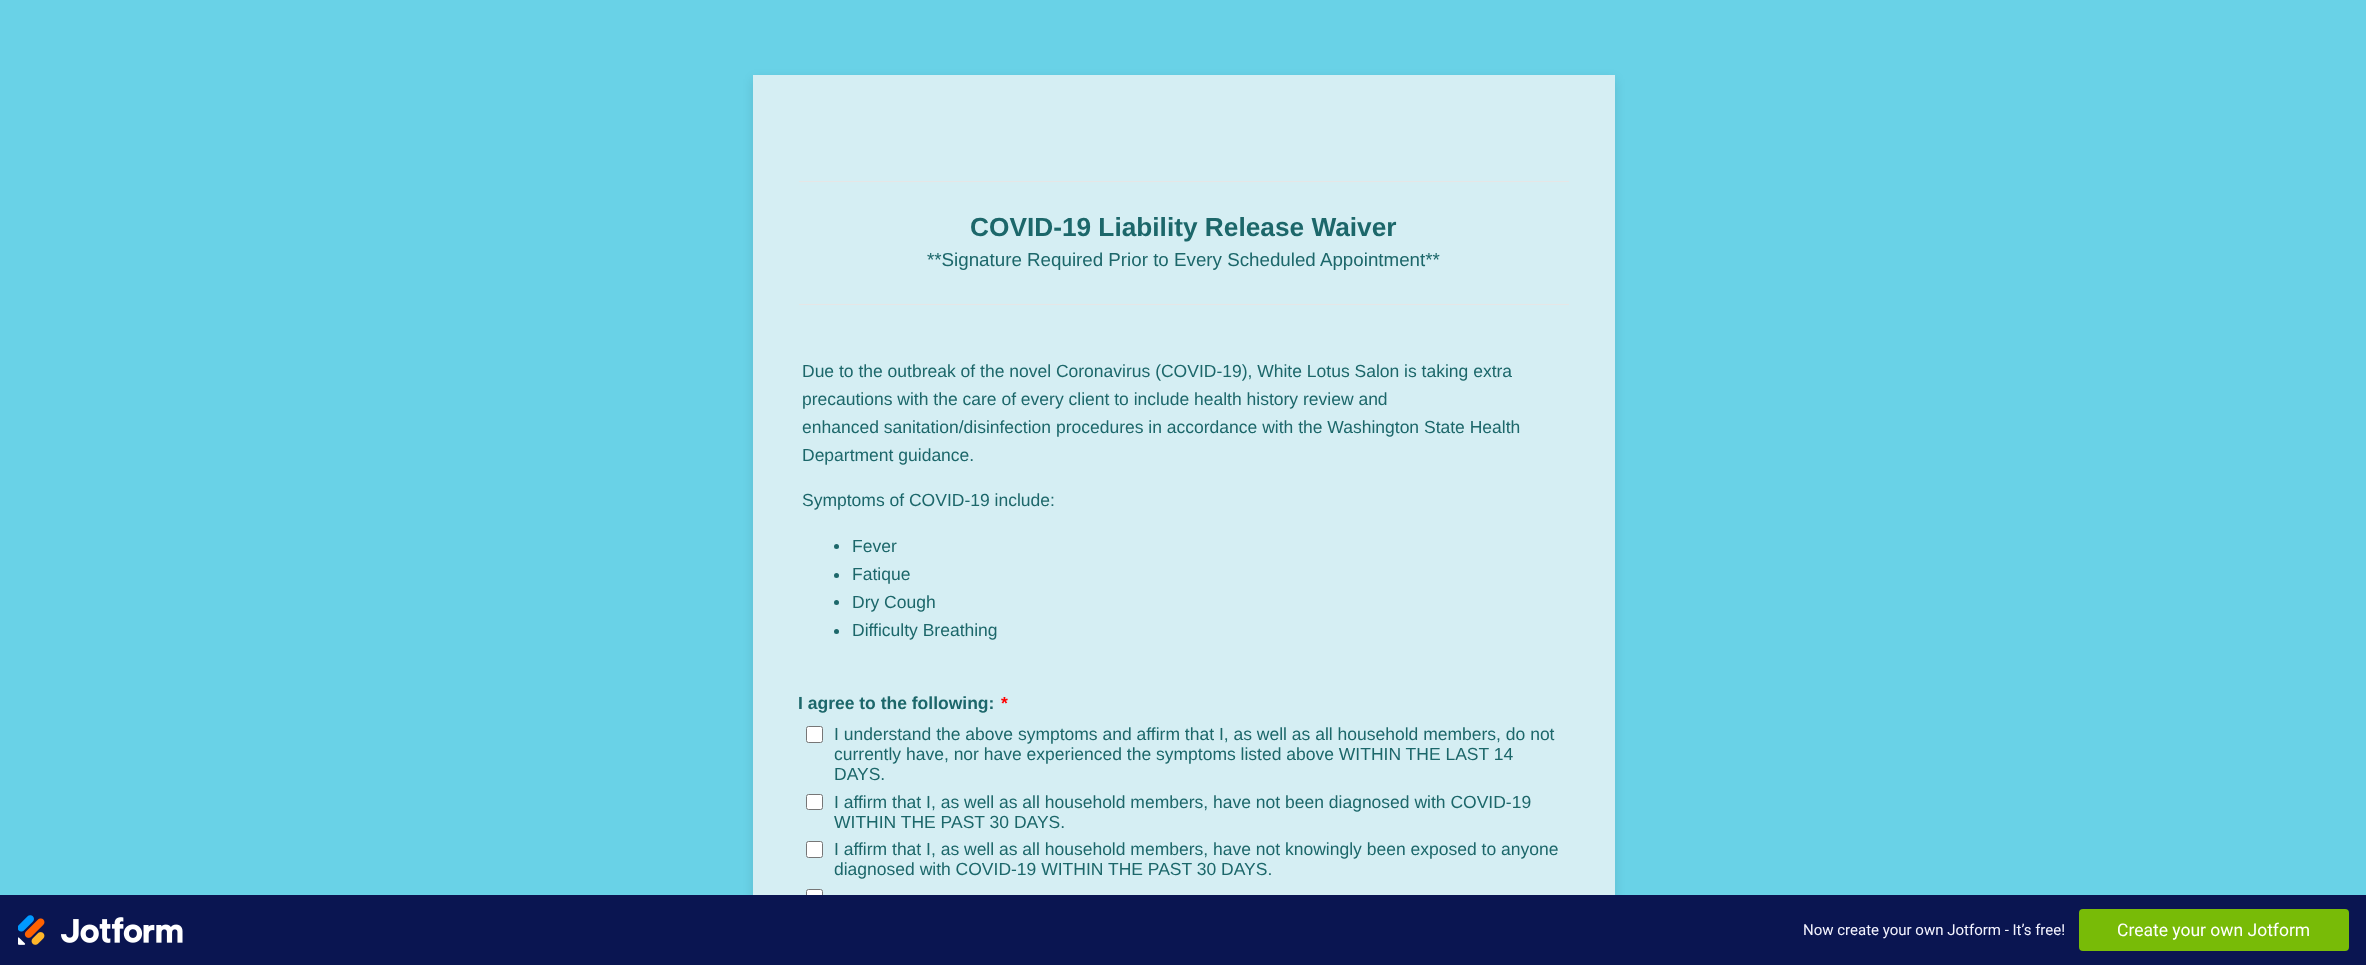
async function draw(canvas) {
	canvas.width = 2366;
	canvas.height = 965;
	const c = canvas.getContext('2d');
	c.miterLimit = 4;
	c.fontKerning = 'normal';
	async function loadImage(src) {
		const img = new Image();
		img.src = src;
		await img.decode();
		return img;
	}

	c.fillStyle = '#69d2e7';
	c.fillRect(0, 0, 2366, 965);
	c.fillStyle = '#0000001a';
	c.filter = 'blur(5.5px)';
	c.beginPath();
	c.rect(753, 79, 862, 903);
	c.fill();
	c.filter = 'none';
	for (const [x, y, w, h, color] of [
		[753, 75, 862, 820, '#d5eef3'],
		[799, 181, 770, 1, '#e6e6e6'],
		[799, 304, 770, 1, '#e6e6e6'],
	]) {
		c.fillStyle = color;
		c.fillRect(x, y, w, h);
	}
	c.font = 'bold 26.25px Liberation Sans';
	c.fillStyle = '#1c676a';
	c.fillText('COVID-19 Liability Release Waiver', 970, 236);
	c.font = '18.75px Liberation Sans';
	c.fillText('**Signature Required Prior to Every Scheduled Appointment**', 927, 266);
	c.font = '17.5px Liberation Sans';
	for (const [text, x, y] of [
		['Due to the outbreak of the novel Coronavirus (COVID-19), White Lotus Salon is taking extra', 802, 377],
		['precautions with the care of every client to include health history review and', 802, 405],
		['enhanced sanitation/disinfection procedures in accordance with the Washington State Health', 802, 433],
		['Department guidance.', 802, 461],
		['Symptoms of COVID-19 include:', 802, 506],
	]) {
		c.fillText(text, x, y);
	}
	c.beginPath();
	c.arc(836.5, 546.5, 2.5, 0, 2 * Math.PI);
	c.fill();
	c.fillText('Fever', 852, 552);
	c.beginPath();
	c.arc(836.5, 575.5, 2.5, 0, 2 * Math.PI);
	c.fill();
	c.fillText('Fatique', 852, 580);
	c.beginPath();
	c.arc(836.5, 602.5, 2.5, 0, 2 * Math.PI);
	c.fill();
	c.fillText('Dry Cough', 852, 608);
	c.beginPath();
	c.arc(836.5, 631.5, 2.5, 0, 2 * Math.PI);
	c.fill();
	c.fillText('Difficulty Breathing', 852, 636);
	c.font = 'bold 17.5px Liberation Sans';
	c.fillText('I agree to the following:', 798, 709);
	c.fillStyle = '#f00';
	c.fillText('*', 1001, 709);
	c.fillStyle = '#fff';
	c.beginPath();
	c.roundRect(806.5, 726.5, 16, 16, 2);
	c.fill();
	c.strokeStyle = '#767676';
	c.stroke();
	c.font = '17.5px Liberation Sans';
	c.fillStyle = '#1c676a';
	for (const [text, x, y] of [
		['I understand the above symptoms and affirm that I, as well as all household members, do not', 834, 740],
		['currently have, nor have experienced the symptoms listed above WITHIN THE LAST 14', 834, 760],
		['DAYS.', 834, 780],
	]) {
		c.fillText(text, x, y);
	}
	c.fillStyle = '#fff';
	c.beginPath();
	c.roundRect(806.5, 794.5, 16, 15, 2);
	c.fill();
	c.stroke();
	c.fillStyle = '#1c676a';
	c.fillText('I affirm that I, as well as all household members, have not been diagnosed with COVID-19', 834, 808);
	c.fillText('WITHIN THE PAST 30 DAYS.', 834, 828);
	c.fillStyle = '#fff';
	c.beginPath();
	c.roundRect(806.5, 841.5, 16, 16, 2);
	c.fill();
	c.stroke();
	c.fillStyle = '#1c676a';
	c.fillText('I affirm that I, as well as all household members, have not knowingly been exposed to anyone', 834, 855);
	c.fillText('diagnosed with COVID-19 WITHIN THE PAST 30 DAYS.', 834, 875);
	c.fillStyle = '#fff';
	c.beginPath();
	c.roundRect(806.5, 889.5, 16, 15, 2);
	c.fill();
	c.stroke();
	c.fillStyle = '#0a1551';
	c.fillRect(0, 895, 2366, 70);
	c.drawImage(await loadImage('img1.png'), 18, 915, 165, 30);
	c.font = '15px Roboto';
	c.fillStyle = '#f3f3fe';
	c.fillText('Now create your own Jotform - It’s free!', 1803, 935);
	c.fillStyle = '#78bb07';
	c.beginPath();
	c.roundRect(2079, 909, 270, 42, 4);
	c.fill();
	c.font = '17.5px Roboto';
	c.fillStyle = '#fff';
	c.fillText('Create your own Jotform', 2117, 936);
}

draw(document.querySelector('canvas'));
